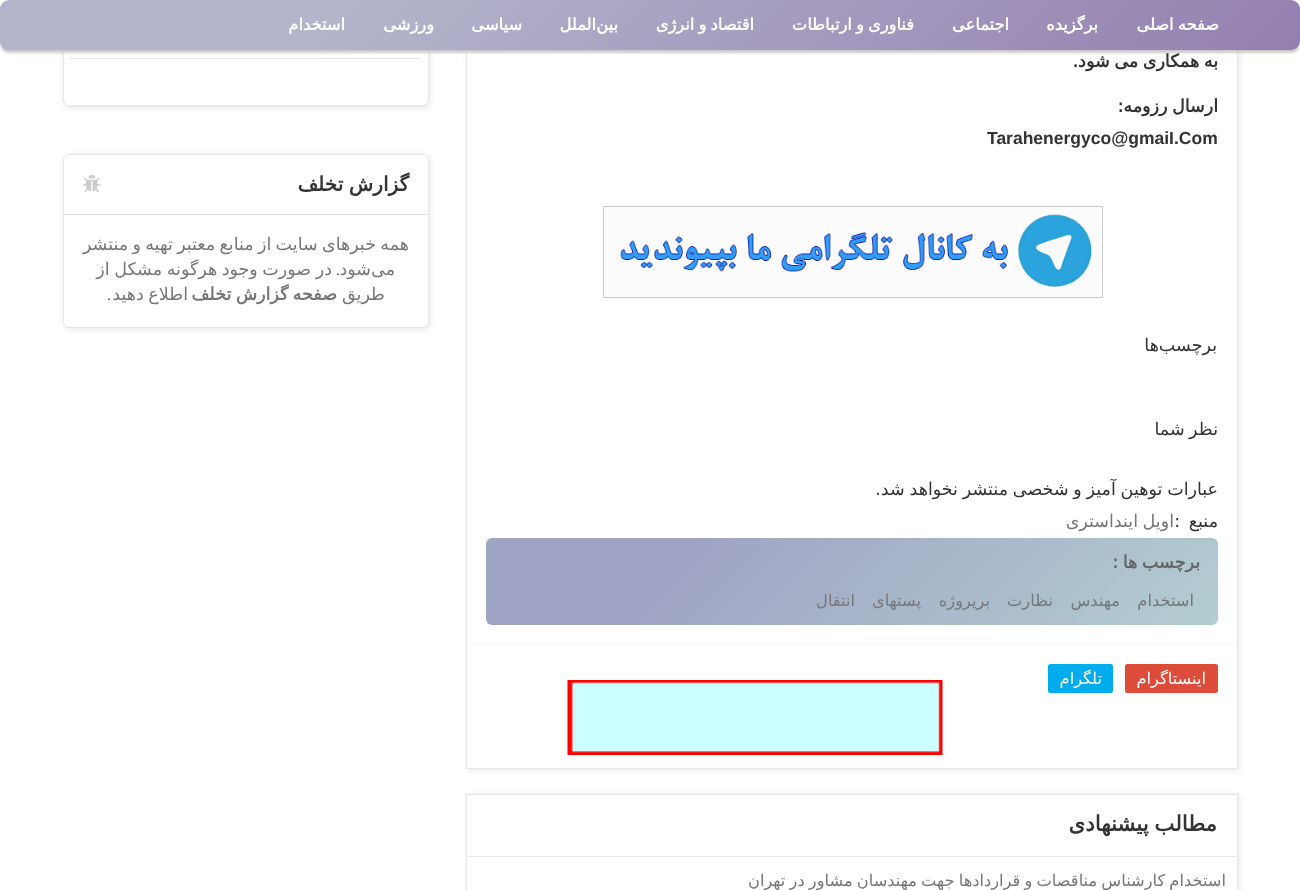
async function draw(canvas) {
	canvas.width = 1300;
	canvas.height = 890;
	const c = canvas.getContext('2d');
	c.miterLimit = 4;
	c.fontKerning = 'normal';
	async function loadImage(src) {
		const img = new Image();
		img.src = src;
		await img.decode();
		return img;
	}
	let gradient;

	c.fillStyle = '#fff';
	c.fillRect(0, 0, 1300, 890);
	c.fillStyle = '#0000001a';
	c.filter = 'blur(3px)';
	c.beginPath();
	c.rect(468, -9, 771, 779);
	c.fill();
	c.filter = 'none';
	c.fillStyle = '#fff';
	c.fillRect(467, 51, 770, 717);
	c.strokeStyle = '#e4e8eb';
	c.strokeRect(466.5, -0.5, 771, 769);
	c.fillStyle = '#0000001a';
	c.filter = 'blur(3px)';
	c.beginPath();
	c.roundRect(64, -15, 366, 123, 6);
	c.fill();
	c.filter = 'none';
	c.fillStyle = '#fff';
	c.beginPath();
	c.roundRect(63.5, -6.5, 365, 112, 5.5);
	c.fill();
	c.stroke();
	c.fillStyle = '#ccc';
	c.filter = 'blur(1px)';
	c.beginPath();
	c.roundRect(0, 3, 1300, 50, 9);
	c.fill();
	c.filter = 'none';
	gradient = c.createLinearGradient(988, 363, 312, -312);
	gradient.addColorStop(0, '#947fb0');
	gradient.addColorStop(0.74, '#b3b5cb');
	c.fillStyle = gradient;
	c.beginPath();
	c.roundRect(0, 0, 1300, 50, 9);
	c.fill();
	c.wordSpacing = '-1px';
	c.direction = 'rtl';
	c.font = 'bold 16.25px DejaVu Sans';
	c.fillStyle = '#fff';
	c.fillText('صفحه اصلی', 1219, 30);
	c.wordSpacing = '0px';
	c.fillText('برگزیده', 1098, 30);
	c.fillText('اجتماعی', 1009, 30);
	c.wordSpacing = '-1px';
	c.fillText('فناوری و ارتباطات', 914, 30);
	c.fillText('اقتصاد و انرژی', 754, 30);
	c.wordSpacing = '0px';
	for (const [text, x, y] of [
		['بین', 618, 30],
		['الملل', 596, 30],
		['سیاسی', 522, 30],
		['ورزشی', 434, 30],
		['استخدام', 345, 30],
	]) {
		c.fillText(text, x, y);
	}
	c.wordSpacing = '-1px';
	c.font = 'bold 17.5px DejaVu Sans';
	c.fillStyle = '#333';
	c.fillText('به همکاری می شود.', 1218, 67);
	c.fillText('ارسال رزومه:', 1218, 112);
	c.wordSpacing = '0px';
	c.direction = 'ltr';
	c.font = 'bold 17.5px Liberation Sans';
	c.fillText('Tarahenergyco@gmaiI.Com', 987, 144);
	c.fillStyle = '#fbfbfb';
	c.beginPath();
	c.rect(603.5, 206.5, 499, 91);
	c.fill();
	c.strokeStyle = '#ccc';
	c.stroke();
	c.drawImage(await loadImage('img1.png'), 620, 214, 472, 73);
	c.direction = 'rtl';
	c.font = '17.5px DejaVu Sans';
	c.fillStyle = '#333';
	c.fillText('برچسب‌ها', 1217, 351);
	c.wordSpacing = '-1px';
	c.fillText('نظر شما', 1218, 435);
	c.wordSpacing = '-0.75px';
	c.fillText('عبارات توهین آمیز و شخصی منتشر نخواهد شد.', 1218, 495);
	c.wordSpacing = '3px';
	c.fillText('منبع :', 1218, 527);
	c.wordSpacing = '-1px';
	c.fillStyle = '#777';
	c.fillText('اویل اینداستری', 1174, 527);
	gradient = c.createLinearGradient(1057, 786, 647, 377);
	gradient.addColorStop(0, '#b3cdd1');
	gradient.addColorStop(0.74, '#9fa4c4');
	c.fillStyle = gradient;
	c.beginPath();
	c.roundRect(486, 538, 732, 87, 6);
	c.fill();
	c.font = 'bold 17.5px DejaVu Sans';
	c.fillStyle = '#666';
	c.fillText('برچسب ها :', 1200, 568);
	c.wordSpacing = '0px';
	c.font = '16.25px DejaVu Sans';
	c.fillStyle = '#777';
	for (const [text, x, y] of [
		['استخدام', 1194, 606],
		['مهندس', 1120, 606],
		['نظارت', 1053, 606],
		['برپروژه', 990, 606],
		['پستهای', 921, 606],
		['انتقال', 855, 606],
	]) {
		c.fillText(text, x, y);
	}
	c.fillStyle = '#f5f5f5';
	c.fillRect(468, 644, 768, 1);
	c.fillStyle = '#dd4b39';
	c.beginPath();
	c.roundRect(1125, 664, 93, 29, 2.5);
	c.fill();
	c.fillStyle = '#fff';
	c.fillText('اینستاگرام', 1206, 684);
	c.fillStyle = '#00aced';
	c.beginPath();
	c.roundRect(1048, 664, 65, 29, 2.5);
	c.fill();
	c.fillStyle = '#fff';
	c.fillText('تلگرام', 1102, 684);
	c.drawImage(await loadImage('img2.png'), 567, 680, 376, 75);
	c.fillStyle = '#0000001a';
	c.filter = 'blur(3px)';
	c.beginPath();
	c.rect(468, 795, 771, 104);
	c.fill();
	c.filter = 'none';
	c.fillStyle = '#fff';
	c.beginPath();
	c.rect(466.5, 794.5, 771, 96);
	c.fill();
	c.strokeStyle = '#e5e5e5';
	c.stroke();
	c.fillStyle = '#e5e5e5';
	c.fillRect(468, 856, 768, 1);
	c.wordSpacing = '-1px';
	c.font = 'bold 21.25px DejaVu Sans';
	c.fillStyle = '#333';
	c.fillText('مطالب پیشنهادی', 1217, 831);
	c.font = '16.25px DejaVu Sans';
	c.fillStyle = '#777';
	c.fillText('استخدام کارشناس مناقصات و قراردادها جهت مهندسان مشاور در تهران', 1226, 886);
	c.fillStyle = '#e5e5e5';
	c.fillRect(70, 58, 351, 1);
	c.fillStyle = '#0000001a';
	c.filter = 'blur(3px)';
	c.beginPath();
	c.roundRect(64, 155, 366, 174, 6);
	c.fill();
	c.filter = 'none';
	c.fillStyle = '#fff';
	c.beginPath();
	c.roundRect(63.5, 154.5, 365, 173, 5.5);
	c.fill();
	c.strokeStyle = '#e4e8eb';
	c.stroke();
	c.fillStyle = '#e5e5e5';
	c.fillRect(64, 214, 364, 1);
	c.wordSpacing = '-0.75px';
	c.font = 'bold 20px DejaVu Sans';
	c.fillStyle = '#333';
	c.fillText('گزارش تخلف', 409, 191);
	c.drawImage(await loadImage('img3.png'), 83, 174, 18, 19);
	c.wordSpacing = '-1.25px';
	c.font = '17.5px DejaVu Sans';
	c.fillStyle = '#777';
	c.fillText('همه خبرهای سایت از منابع معتبر تهیه و منتشر', 409, 250);
	c.wordSpacing = '0px';
	c.fillText('می', 395, 275);
	c.fillText('شود', 371, 275);
	c.wordSpacing = '-1px';
	c.fillText('در صورت وجود هرگونه مشکل از', 332, 275);
	c.wordSpacing = '0px';
	c.font = '17.5px Liberation Serif';
	c.fillText('.', 340, 275);
	c.font = '17.5px DejaVu Sans';
	c.fillText('طریق', 385, 300);
	c.wordSpacing = '-1.25px';
	c.font = 'bold 17.5px DejaVu Sans';
	c.fillText('صفحه گزارش تخلف', 337, 300);
	c.wordSpacing = '-1px';
	c.font = '17.5px DejaVu Sans';
	c.fillText('اطلاع دهید', 188, 300);
	c.wordSpacing = '0px';
	c.font = '17.5px Liberation Serif';
	c.fillText('.', 111, 300);
}

draw(document.querySelector('canvas'));
